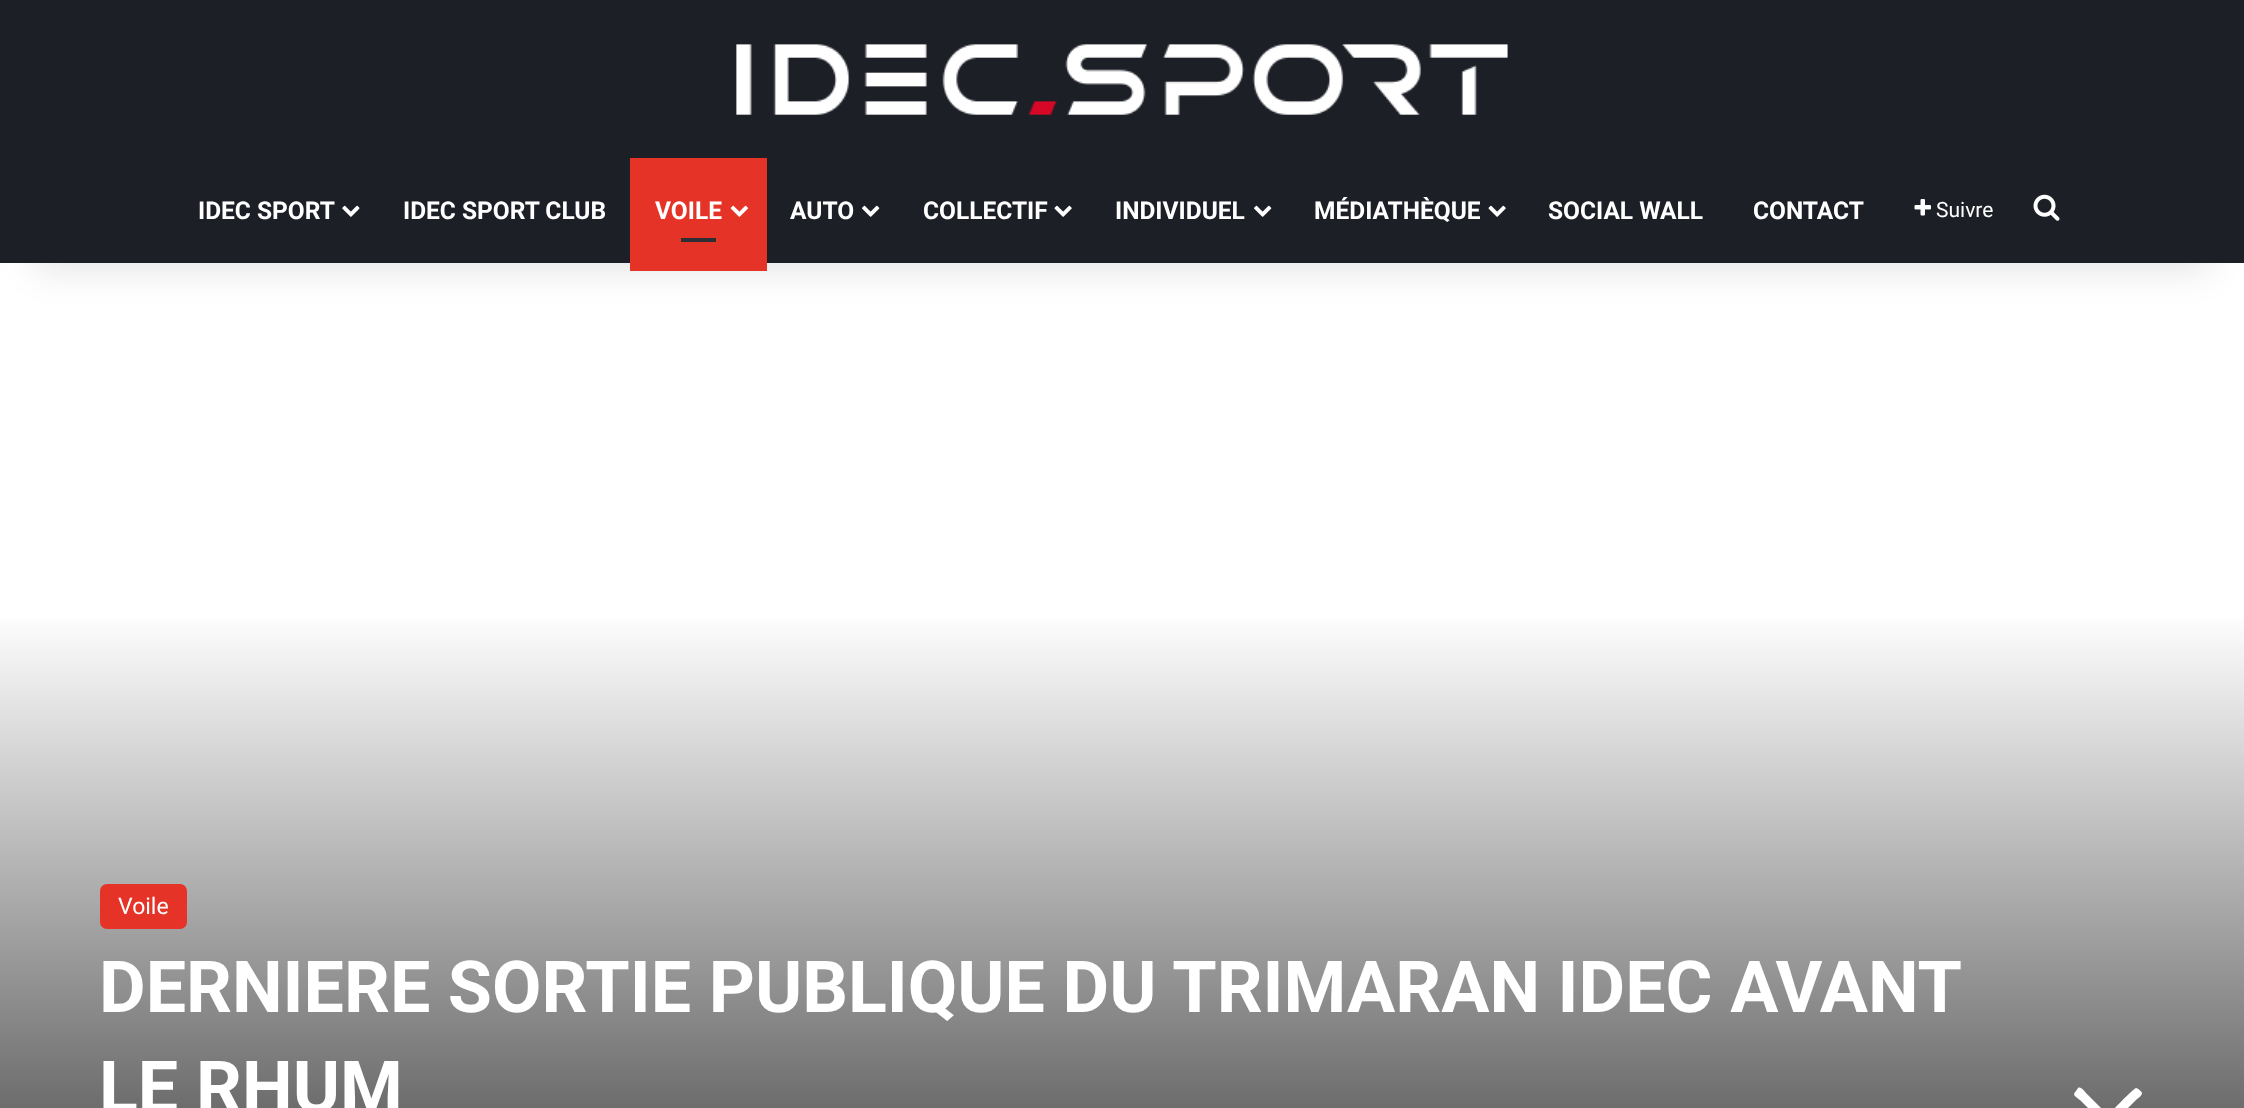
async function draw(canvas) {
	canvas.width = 2244;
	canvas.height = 1108;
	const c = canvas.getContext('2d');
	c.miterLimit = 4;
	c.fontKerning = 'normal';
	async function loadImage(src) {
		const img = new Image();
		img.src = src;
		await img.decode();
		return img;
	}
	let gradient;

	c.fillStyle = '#fff';
	c.fillRect(0, 0, 2244, 1108);
	c.fillStyle = '#0000001a';
	c.filter = 'blur(17.5px)';
	c.beginPath();
	c.rect(35, 79, 2175, 192);
	c.fill();
	c.filter = 'none';
	c.fillStyle = '#1d1f27';
	c.fillRect(0, 0, 2244, 263);
	c.drawImage(await loadImage('img1.png'), 736, 44, 772, 71);
	c.font = 'bold 24.5px Roboto';
	c.fillStyle = '#fff';
	c.fillText('IDEC SPORT', 198, 219);
	c.drawImage(await loadImage('img2.png'), 342, 205, 18, 12);
	c.fillText('IDEC SPORT CLUB', 403, 219);
	c.fillStyle = '#e63328';
	c.fillRect(630, 158, 137, 113);
	c.fillStyle = '#fff';
	c.fillText('VOILE', 655, 219);
	c.drawImage(await loadImage('img3.png'), 730, 205, 18, 12);
	c.fillStyle = '#2c2f34';
	c.fillRect(681, 238, 35, 4);
	c.fillStyle = '#fff';
	c.fillText('AUTO', 790, 219);
	c.drawImage(await loadImage('img4.png'), 862, 205, 18, 12);
	c.fillText('COLLECTIF', 923, 219);
	c.drawImage(await loadImage('img5.png'), 1054, 205, 18, 12);
	c.fillText('INDIVIDUEL', 1115, 219);
	c.drawImage(await loadImage('img4.png'), 1254, 205, 18, 12);
	c.fillText('MÉDIATHÈQUE', 1314, 219);
	c.drawImage(await loadImage('img5.png'), 1488, 205, 18, 12);
	c.fillText('SOCIAL WALL', 1548, 219);
	c.fillText('CONTACT', 1753, 219);
	c.drawImage(await loadImage('img6.png'), 1914, 199, 17, 17);
	c.font = '21px Roboto';
	c.fillText('Suivre', 1936, 217);
	c.drawImage(await loadImage('img7.png'), 2033, 194, 27, 27);
	gradient = c.createLinearGradient(1123, 611, 1123, 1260);
	gradient.addColorStop(0, '#fff');
	gradient.addColorStop(1, '#404040');
	c.fillStyle = gradient;
	c.fillRect(0, 619, 2244, 489);
	c.fillStyle = '#e63328';
	c.beginPath();
	c.roundRect(100, 884, 87, 45, 7);
	c.fill();
	c.font = '23px Roboto';
	c.fillStyle = '#fff';
	c.fillText('Voile', 118, 914);
	c.wordSpacing = '-0.25px';
	c.font = 'bold 71.75px Roboto';
	c.fillText('DERNIERE SORTIE PUBLIQUE DU TRIMARAN IDEC AVANT', 99, 1012);
	c.wordSpacing = '0px';
	c.fillText('LE RHUM', 99, 1112);
	c.beginPath();
	c.moveTo(2142, 1093);
	c.bezierCurveTo(2142, 1096, 2138, 1098, 2136, 1100);
	c.lineTo(2115, 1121);
	c.bezierCurveTo(2107, 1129, 2109, 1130, 2101, 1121);
	c.lineTo(2080, 1100);
	c.bezierCurveTo(2075, 1096, 2072, 1095, 2076, 1091);
	c.lineTo(2078, 1088);
	c.bezierCurveTo(2081, 1086, 2085, 1092, 2086, 1093);
	c.lineTo(2108, 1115);
	c.bezierCurveTo(2111, 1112, 2134, 1088, 2136, 1088);
	c.bezierCurveTo(2138, 1088, 2142, 1092, 2142, 1093);
	c.closePath();
	c.fill();
}

draw(document.querySelector('canvas'));
